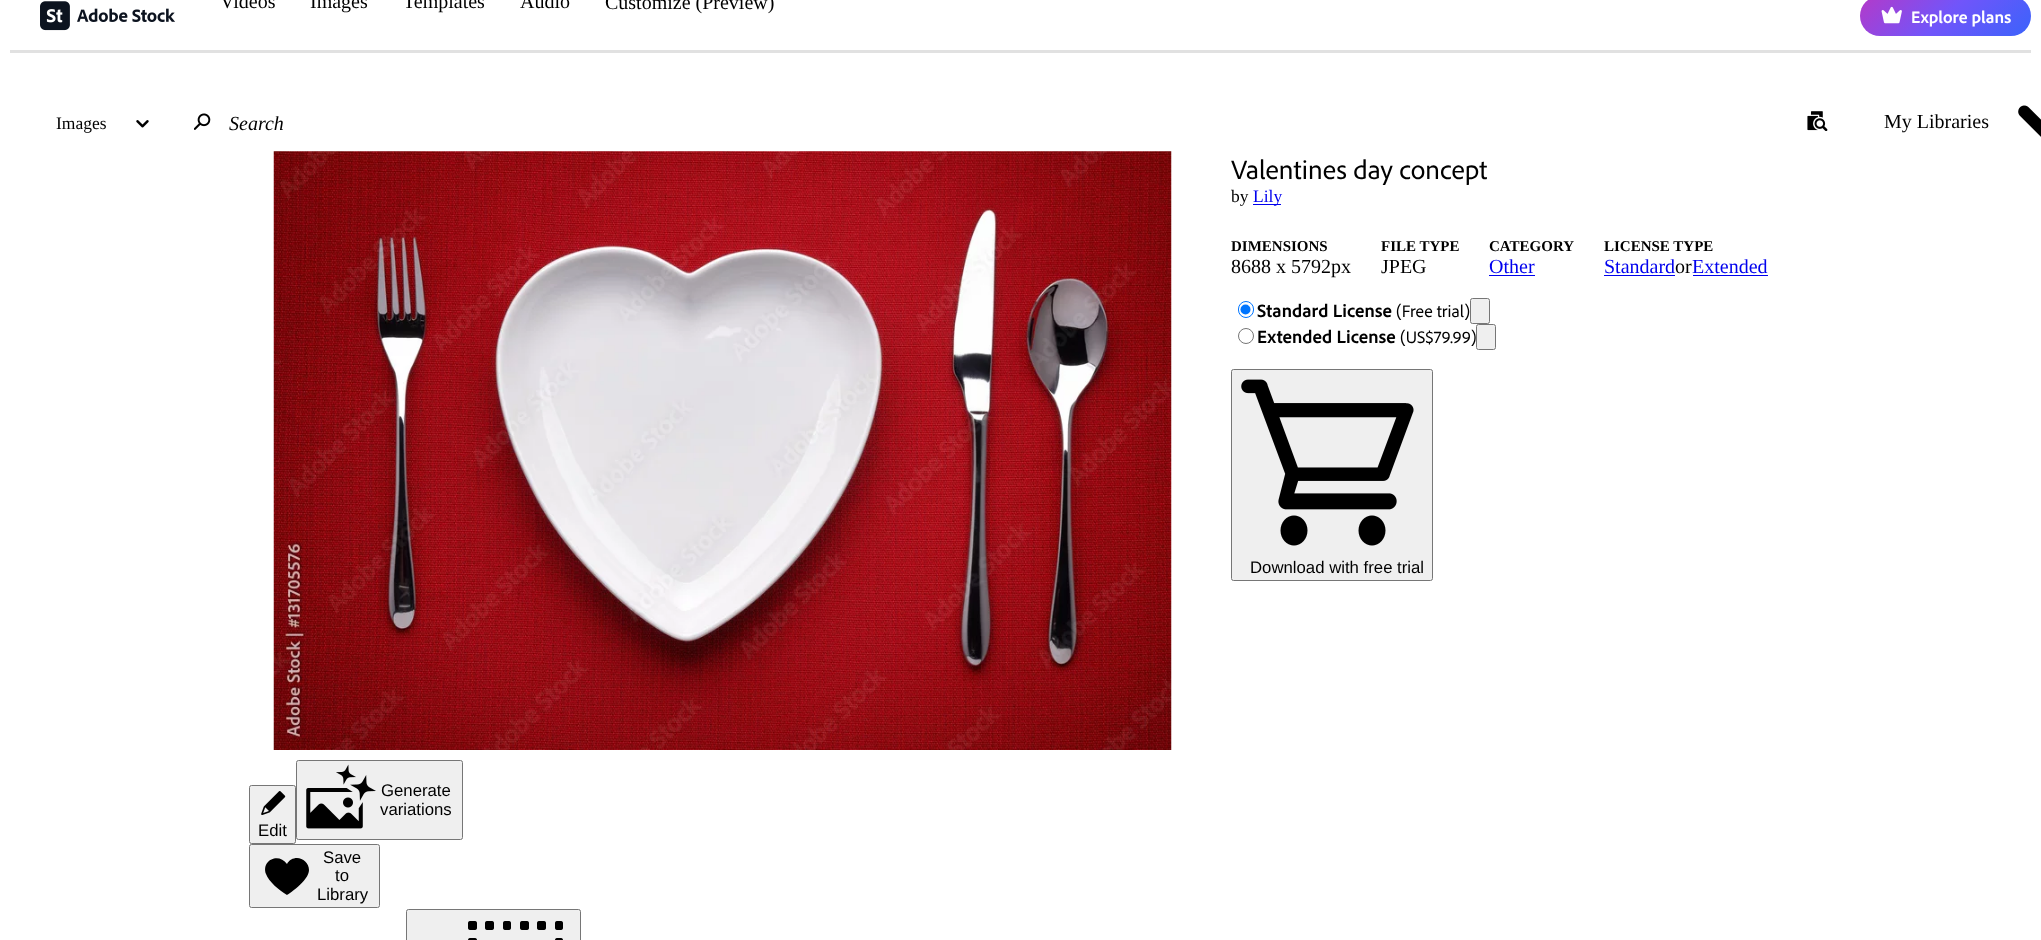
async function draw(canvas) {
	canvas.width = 2041;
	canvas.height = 940;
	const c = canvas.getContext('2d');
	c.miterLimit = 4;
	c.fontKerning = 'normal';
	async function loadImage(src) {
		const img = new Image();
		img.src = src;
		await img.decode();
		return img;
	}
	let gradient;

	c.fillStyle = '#fff';
	c.fillRect(0, 0, 2041, 940);
	c.fillStyle = '#e1e1e1';
	c.fillRect(10, 50, 2021, 3);
	c.drawImage(await loadImage('img1.png'), 40, 1, 135, 30);
	c.font = '20px Liberation Serif';
	c.fillStyle = '#000';
	for (const [text, x, y] of [
		['Videos', 220, 8],
		['Images', 310, 8],
		['Templates', 403, 8],
		['Audio', 520, 8],
		['Customize (Preview)', 605, 9],
	]) {
		c.fillText(text, x, y);
	}
	gradient = c.createLinearGradient(1893, -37, 1998, 69);
	gradient.addColorStop(0, '#b539c8');
	gradient.addColorStop(0.5, '#7155fa');
	gradient.addColorStop(1, '#3b63fb');
	c.fillStyle = gradient;
	c.beginPath();
	c.roundRect(1860, -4, 171, 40, 20);
	c.fill();
	c.drawImage(await loadImage('img2.png'), 1881, 6, 21, 18);
	c.font = 'bold 17.5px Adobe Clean';
	c.fillStyle = '#fff';
	c.fillText('Explore plans', 1911, 23);
	c.font = '17.5px Liberation Serif';
	c.fillStyle = '#000';
	c.fillText('Images', 56, 129);
	c.drawImage(await loadImage('img3.png'), 136, 120, 13, 8);
	c.drawImage(await loadImage('img4.png'), 194, 113, 17, 17);
	c.font = 'italic 20px Liberation Serif';
	c.fillText('Search', 229, 130);
	c.drawImage(await loadImage('img5.png'), 1807, 111, 21, 20);
	c.font = '20px Liberation Serif';
	c.fillText('My Libraries', 1884, 128);
	c.drawImage(await loadImage('img6.png'), 2018, 105, 23, 32);
	c.font = '27.5px Adobe Clean';
	c.fillText('Valentines day concept', 1231, 179);
	c.font = '17.5px Liberation Serif';
	c.fillText('by', 1231, 202);
	c.fillStyle = '#00e';
	c.fillRect(1253, 204, 28, 1);
	c.fillText('Lily', 1253, 202);
	c.font = 'bold 15px Liberation Serif';
	c.fillStyle = '#000';
	c.fillText('DIMENSIONS', 1231, 251);
	c.font = '20px Liberation Serif';
	c.fillText('8688 x 5792px', 1231, 273);
	c.font = 'bold 15px Liberation Serif';
	c.fillText('FILE TYPE', 1381, 251);
	c.font = '20px Liberation Serif';
	c.fillText('JPEG', 1381, 273);
	c.font = 'bold 15px Liberation Serif';
	c.fillText('CATEGORY', 1489, 251);
	c.font = '20px Liberation Serif';
	c.fillStyle = '#00e';
	c.fillText('Other', 1489, 273);
	c.fillRect(1489, 275, 46, 1);
	c.font = 'bold 15px Liberation Serif';
	c.fillStyle = '#000';
	c.fillText('LICENSE TYPE', 1604, 251);
	c.font = '20px Liberation Serif';
	c.fillStyle = '#00e';
	c.fillText('Standard', 1604, 273);
	c.fillStyle = '#000';
	c.fillText('or', 1675, 273);
	c.fillStyle = '#00e';
	c.fillRect(1604, 275, 71, 1);
	c.fillRect(1693, 275, 75, 1);
	c.fillText('Extended', 1692, 273);
	c.beginPath();
	c.roundRect(1238.5, 301.5, 15, 16, 7.5);
	c.strokeStyle = '#0075ff';
	c.stroke();
	c.fillStyle = '#0075ff';
	c.beginPath();
	c.arc(1245.5, 309.5, 5, 0, 2 * Math.PI);
	c.fill();
	c.font = 'bold 18.75px Adobe Clean';
	c.fillStyle = '#000';
	c.fillText('Standard License', 1257, 317);
	c.font = '17.5px Adobe Clean';
	c.fillText('(Free trial)', 1396, 317);
	c.fillStyle = '#efefef';
	c.beginPath();
	c.roundRect(1470.5, 298.5, 19, 25, 2);
	c.fill();
	c.strokeStyle = '#767676';
	c.stroke();
	c.beginPath();
	c.arc(1246, 336, 7.5, 0, 2 * Math.PI);
	c.stroke();
	c.font = 'bold 18.75px Adobe Clean';
	c.fillStyle = '#000';
	c.fillText('Extended License', 1257, 343);
	c.font = '17.5px Adobe Clean';
	c.fillText('(US$79.99)', 1400, 343);
	c.fillStyle = '#efefef';
	c.beginPath();
	c.roundRect(1476.5, 324.5, 19, 25, 2);
	c.fill();
	c.stroke();
	c.beginPath();
	c.roundRect(1231.5, 369.5, 201, 211, 2);
	c.fill();
	c.stroke();
	c.drawImage(await loadImage('img7.png'), 1241, 379, 173, 167);
	c.font = '16.75px Liberation Sans';
	c.fillStyle = '#000';
	c.fillText('Download with free trial', 1250, 573);
	c.drawImage(await loadImage('img8.png'), 273, 151, 899, 599);
	c.fillStyle = '#efefef';
	c.beginPath();
	c.roundRect(296.5, 760.5, 166, 79, 2);
	c.fill();
	c.stroke();
	c.drawImage(await loadImage('img9.png'), 306, 764, 70, 65);
	c.fillStyle = '#000';
	c.fillText('Generate', 381, 796);
	c.fillText('variations', 380, 815);
	c.fillStyle = '#efefef';
	c.beginPath();
	c.roundRect(249.5, 785.5, 46, 58, 2);
	c.fill();
	c.stroke();
	c.drawImage(await loadImage('img10.png'), 261, 791, 25, 24);
	c.fillStyle = '#000';
	c.fillText('Edit', 258, 836);
	c.fillStyle = '#efefef';
	c.beginPath();
	c.roundRect(249.5, 844.5, 130, 63, 2);
	c.fill();
	c.stroke();
	c.fillStyle = '#000';
	c.beginPath();
	c.moveTo(297, 858);
	c.bezierCurveTo(293, 858, 289, 860, 287, 864);
	c.bezierCurveTo(279, 852, 261, 860, 266, 874);
	c.bezierCurveTo(269, 882, 279, 890, 287, 895);
	c.bezierCurveTo(287, 895, 309, 881, 309, 870);
	c.bezierCurveTo(309, 863, 303, 858, 297, 858);
	c.closePath();
	c.fill('evenodd');
	for (const [text, x, y] of [
		['Save', 323, 863],
		['to', 335, 881],
		['Library', 317, 900],
	]) {
		c.fillText(text, x, y);
	}
	c.fillStyle = '#efefef';
	c.beginPath();
	c.roundRect(406.5, 909.5, 174, 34, 2);
	c.fill();
	c.stroke();
	c.drawImage(await loadImage('img11.png'), 468, 921, 95, 19);
}

draw(document.querySelector('canvas'));
